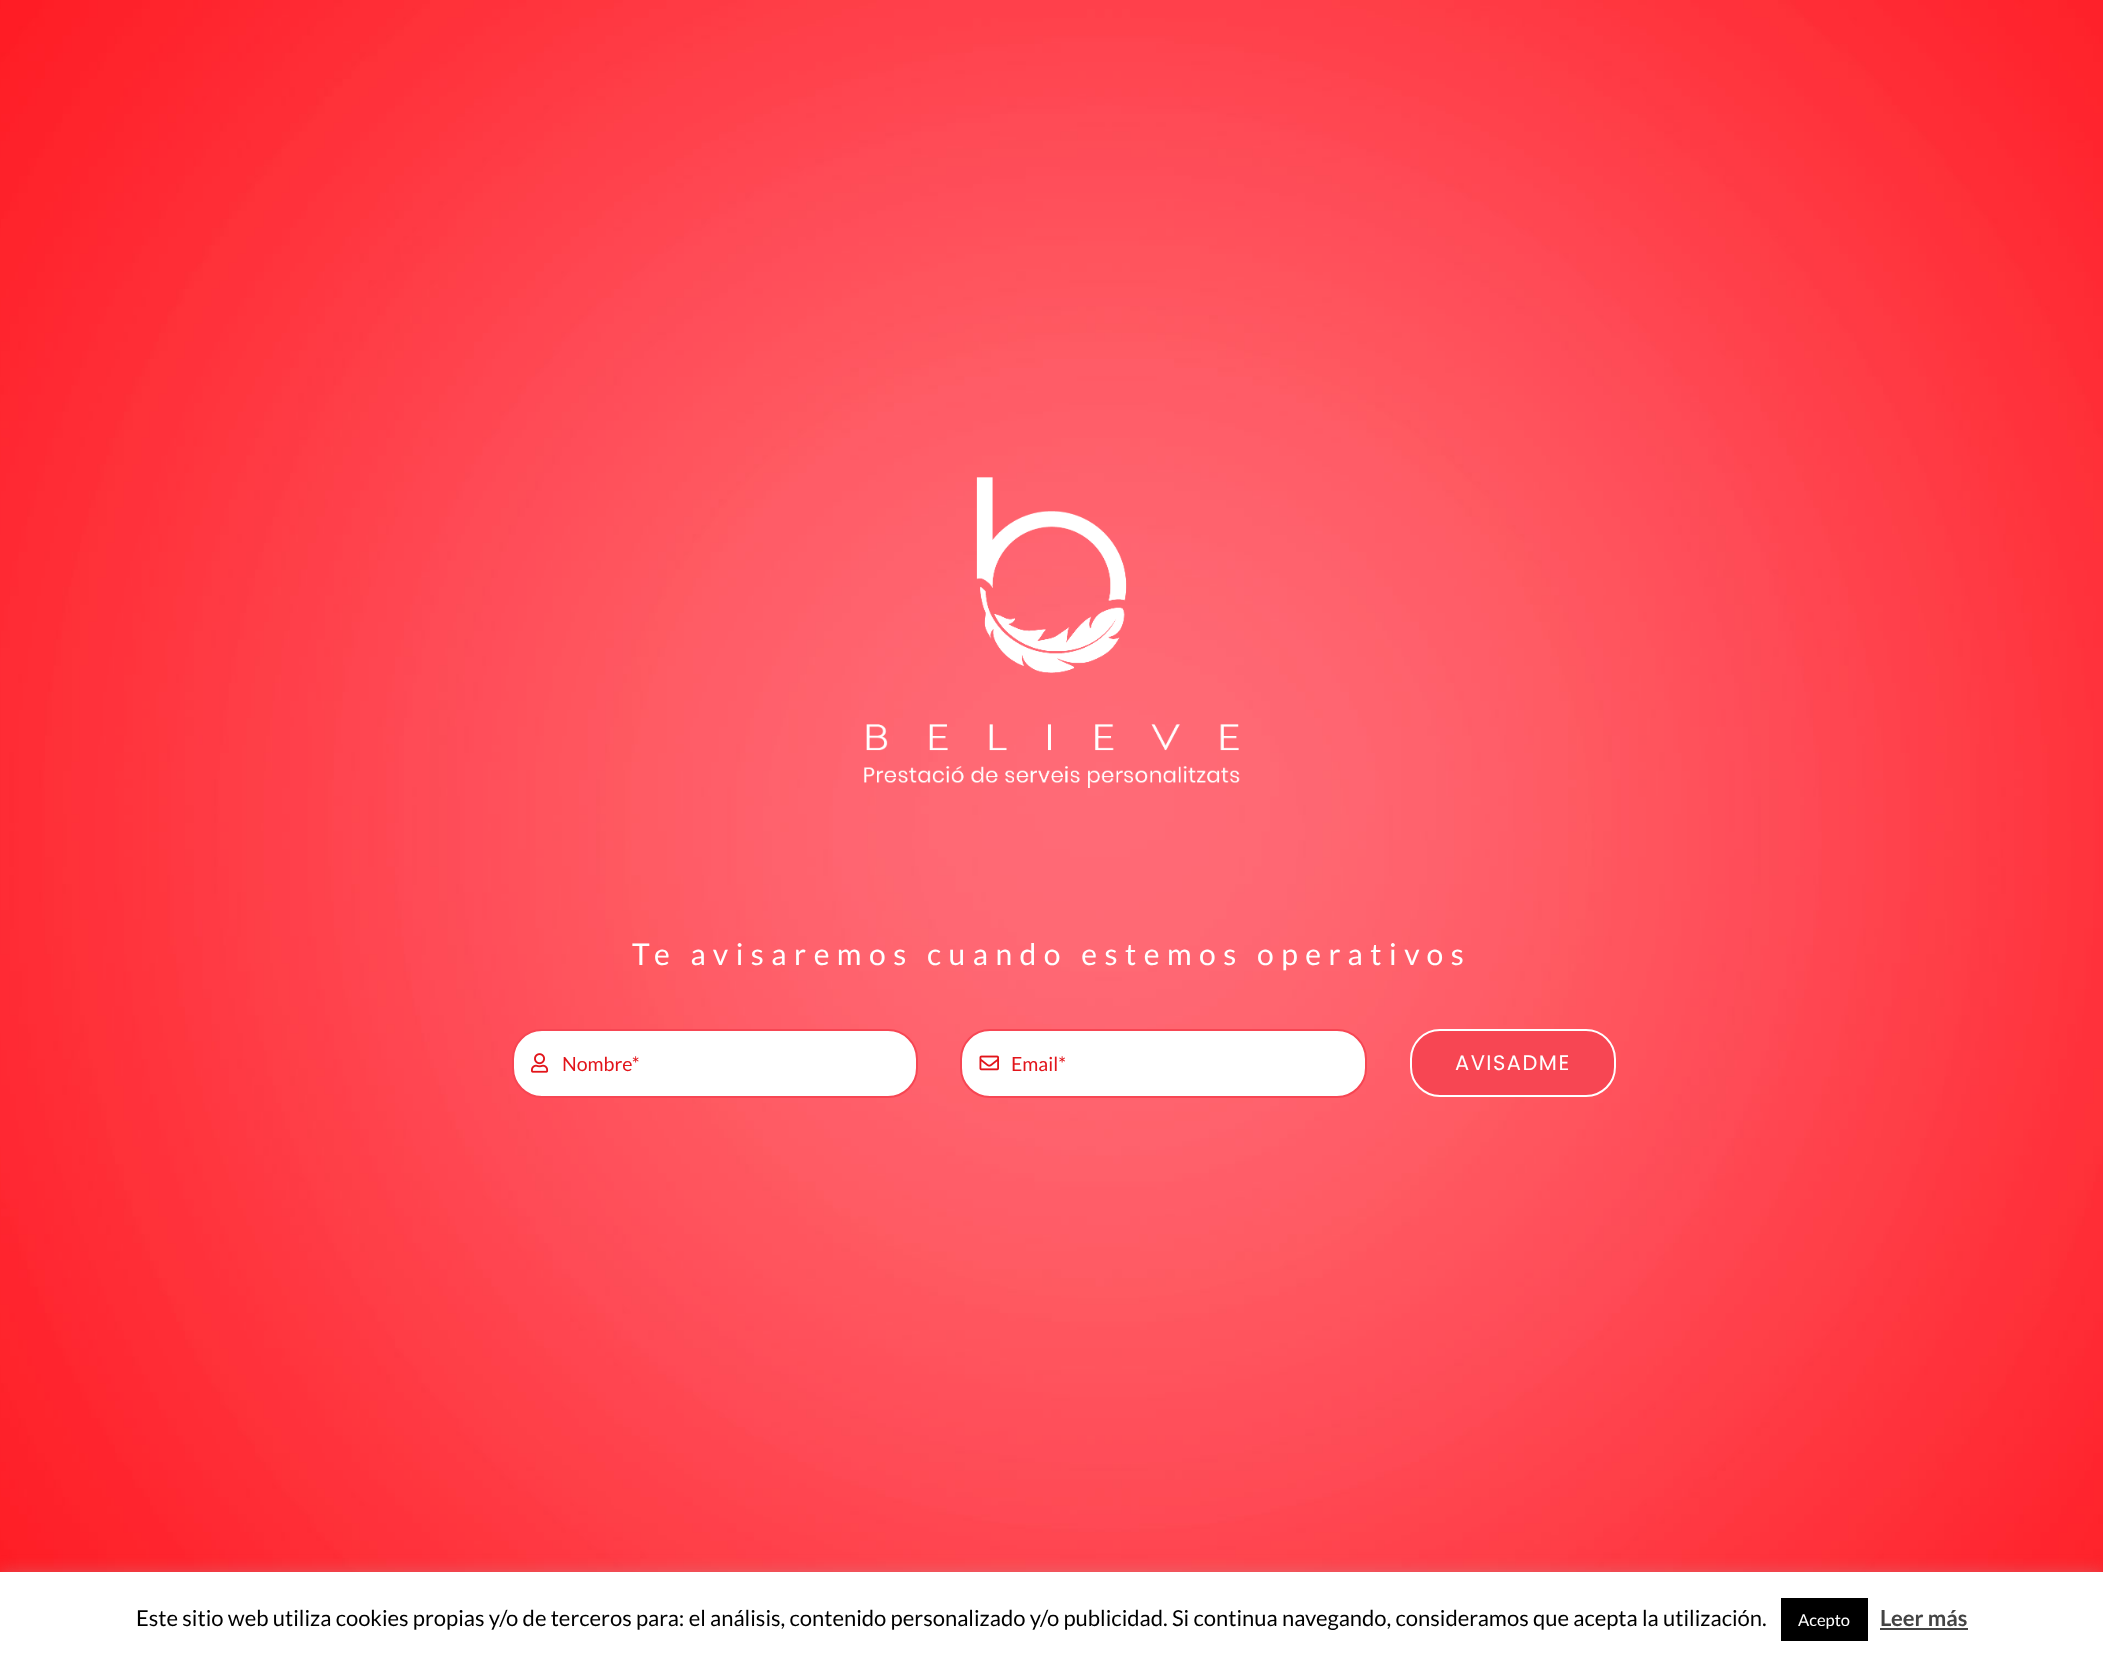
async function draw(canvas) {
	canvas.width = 2103;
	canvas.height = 1659;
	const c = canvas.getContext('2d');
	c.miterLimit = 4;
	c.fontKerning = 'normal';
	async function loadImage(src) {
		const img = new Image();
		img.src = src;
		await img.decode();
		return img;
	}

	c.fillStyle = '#fff';
	c.fillRect(0, 0, 2103, 1659);
	c.drawImage(await loadImage('img1.png'), 0, 0, 2103, 1572);
	c.drawImage(await loadImage('img2.png'), 864, 477, 376, 311);
	c.letterSpacing = '7.5px';
	c.font = '30px Lato';
	c.fillText('Te avisaremos cuando estemos operativos', 632, 965);
	c.beginPath();
	c.roundRect(513, 1030, 404, 67, 29);
	c.fill();
	c.strokeStyle = '#f74653';
	c.lineWidth = 2;
	c.stroke();
	c.drawImage(await loadImage('img3.png'), 531, 1053, 18, 20);
	c.letterSpacing = '0px';
	c.font = '19.5px Lato';
	c.fillStyle = '#e2141a';
	c.fillText('Nombre*', 562, 1071);
	c.fillStyle = '#fff';
	c.beginPath();
	c.roundRect(961, 1030, 405, 67, 29);
	c.fill();
	c.stroke();
	c.drawImage(await loadImage('img4.png'), 979, 1055, 20, 16);
	c.fillStyle = '#e2141a';
	c.fillText('Email*', 1011, 1071);
	c.fillStyle = '#f74653';
	c.beginPath();
	c.roundRect(1411, 1030, 204, 66, 29);
	c.fill();
	c.strokeStyle = '#fff';
	c.stroke();
	c.letterSpacing = '1.5px';
	c.font = '21px Poppins';
	c.fillStyle = '#fff';
	c.fillText('AVISADME', 1455, 1070);
	c.fillStyle = '#acabab4d';
	c.filter = 'blur(7.5px)';
	c.beginPath();
	c.rect(0, 1571, 2103, 87);
	c.fill();
	c.filter = 'none';
	c.fillStyle = '#fff';
	c.fillRect(0, 1572, 2103, 87);
	c.letterSpacing = '0px';
	c.font = '22px Lato';
	c.fillStyle = '#000';
	c.fillText('Este sitio web utiliza cookies propias y/o de terceros para: el análisis, contenido personalizado y/o publicidad. Si continua navegando, consideramos que acepta la utilización.', 136, 1626);
	c.fillRect(1781, 1598, 87, 43);
	c.font = '16.5px Lato';
	c.fillStyle = '#fff';
	c.fillText('Acepto', 1798, 1626);
	c.font = 'bold 22px Lato';
	c.fillStyle = '#444';
	c.fillText('Leer más', 1880, 1626);
	c.fillRect(1880, 1628, 88, 2);
}

draw(document.querySelector('canvas'));
